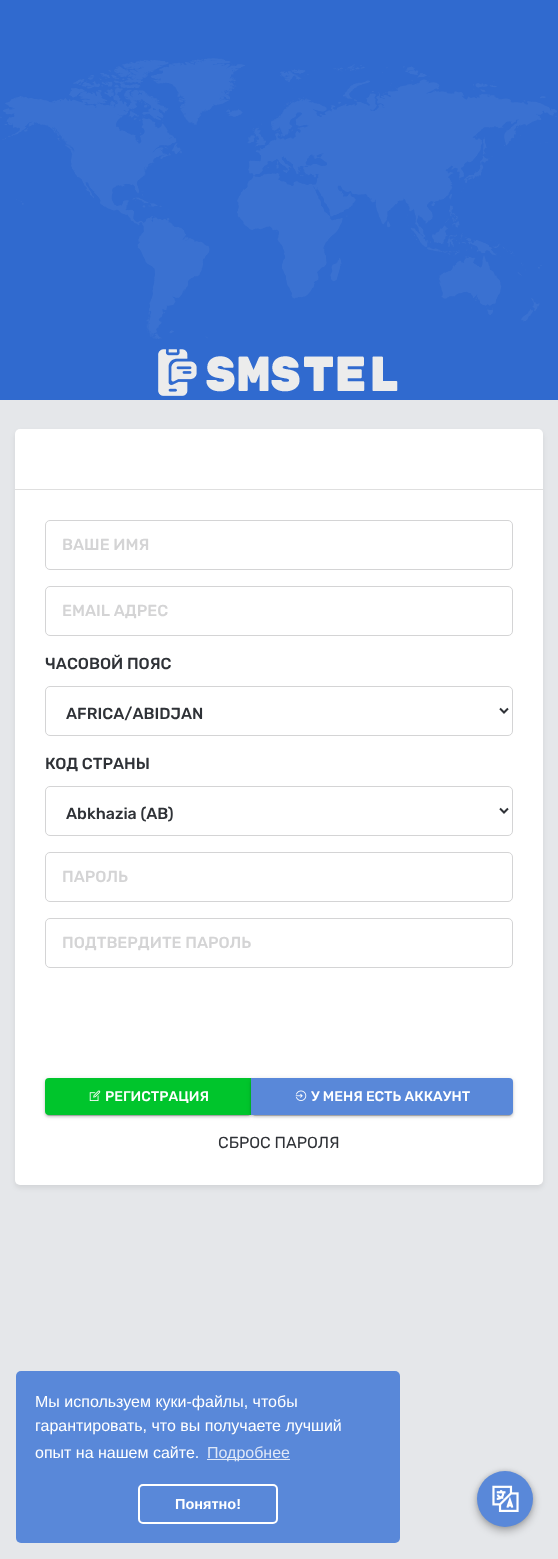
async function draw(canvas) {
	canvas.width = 558;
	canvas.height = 1559;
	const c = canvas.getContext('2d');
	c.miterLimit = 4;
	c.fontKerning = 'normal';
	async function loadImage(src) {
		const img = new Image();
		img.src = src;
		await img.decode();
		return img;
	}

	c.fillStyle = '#e5e7ea';
	c.fillRect(0, 0, 558, 1559);
	c.fillStyle = '#306acf';
	c.fillRect(0, 0, 558, 400);
	c.drawImage(await loadImage('img1.png'), 0, 58, 557, 281);
	c.drawImage(await loadImage('img2.png'), 158, 349, 240, 47);
	c.fillStyle = '#00000014';
	c.filter = 'blur(2.5px)';
	c.beginPath();
	c.roundRect(15, 432, 528, 756, 5);
	c.fill();
	c.filter = 'none';
	c.fillStyle = '#fff';
	c.beginPath();
	c.roundRect(15, 429, 528, 756, 5);
	c.fill();
	c.fillStyle = '#dfdfdf';
	c.fillRect(15, 489, 528, 1);
	c.beginPath();
	c.roundRect(45.5, 520.5, 467, 49, 4.5);
	c.strokeStyle = '#d4d4d5';
	c.stroke();
	c.font = '500 16px Rubik';
	c.fillStyle = '#d4d4d5';
	c.fillText('ВАШЕ ИМЯ', 62, 550);
	c.beginPath();
	c.roundRect(45.5, 586.5, 467, 49, 4.5);
	c.stroke();
	c.fillText('EMAIL АДРЕС', 62, 616);
	c.fillStyle = '#2f3237';
	c.fillText('ЧАСОВОЙ ПОЯС', 45, 669);
	c.beginPath();
	c.roundRect(45.5, 686.5, 467, 49, 4.5);
	c.stroke();
	c.beginPath();
	c.moveTo(500, 708.5);
	c.lineTo(504, 712.5);
	c.lineTo(508, 708.5);
	c.strokeStyle = '#2f3237';
	c.lineWidth = 2;
	c.stroke();
	c.fillText('AFRICA/ABIDJAN', 66, 719);
	c.fillText('КОД СТРАНЫ', 45, 769);
	c.beginPath();
	c.roundRect(45.5, 786.5, 467, 49, 4.5);
	c.strokeStyle = '#d4d4d5';
	c.lineWidth = 1;
	c.stroke();
	c.beginPath();
	c.moveTo(500, 808.5);
	c.lineTo(504, 812.5);
	c.lineTo(508, 808.5);
	c.strokeStyle = '#2f3237';
	c.lineWidth = 2;
	c.stroke();
	c.fillText('Abkhazia (AB)', 66, 819);
	c.beginPath();
	c.roundRect(45.5, 852.5, 467, 49, 4.5);
	c.strokeStyle = '#d4d4d5';
	c.lineWidth = 1;
	c.stroke();
	c.fillStyle = '#d4d4d5';
	c.fillText('ПАРОЛЬ', 62, 882);
	c.beginPath();
	c.roundRect(45.5, 918.5, 467, 49, 4.5);
	c.stroke();
	c.fillText('ПОДТВЕРДИТЕ ПАРОЛЬ', 62, 948);
	c.fillStyle = '#0000001f';
	c.filter = 'blur(2.5px)';
	c.beginPath();
	c.roundRect(45, 1079, 207, 37, 4);
	c.fill();
	c.filter = 'none';
	c.fillStyle = '#00000024';
	c.filter = 'blur(1px)';
	c.beginPath();
	c.roundRect(45, 1080, 207, 37, 4);
	c.fill();
	c.filter = 'none';
	c.fillStyle = '#00000033';
	c.filter = 'blur(0.5px)';
	c.beginPath();
	c.roundRect(47, 1083, 203, 33, 2);
	c.fill();
	c.filter = 'none';
	c.fillStyle = '#00c52c';
	c.beginPath();
	c.roundRect(45, 1078, 207, 37, [4, 0, 0, 4]);
	c.fill();
	c.drawImage(await loadImage('img3.png'), 89, 1090, 12, 11);
	c.font = '500 14px Rubik';
	c.fillStyle = '#fff';
	c.fillText('РЕГИСТРАЦИЯ', 105, 1101);
	c.fillStyle = '#0000001f';
	c.filter = 'blur(2.5px)';
	c.beginPath();
	c.roundRect(251, 1079, 262, 37, 4);
	c.fill();
	c.filter = 'none';
	c.fillStyle = '#00000024';
	c.filter = 'blur(1px)';
	c.beginPath();
	c.roundRect(251, 1080, 262, 37, 4);
	c.fill();
	c.filter = 'none';
	c.fillStyle = '#00000033';
	c.filter = 'blur(0.5px)';
	c.beginPath();
	c.roundRect(253, 1083, 258, 33, 2);
	c.fill();
	c.filter = 'none';
	c.fillStyle = '#5988d9';
	c.beginPath();
	c.roundRect(251, 1078, 262, 37, [0, 4, 4, 0]);
	c.fill();
	c.drawImage(await loadImage('img4.png'), 295, 1090, 12, 11);
	c.fillStyle = '#fff';
	c.fillText('У МЕНЯ ЕСТЬ АККАУНТ', 311, 1101);
	c.font = '16px Rubik';
	c.fillStyle = '#2f3237';
	c.fillText('СБРОС ПАРОЛЯ', 218, 1148);
	c.fillStyle = '#5988d9';
	c.beginPath();
	c.roundRect(16, 1371, 384, 172, 5);
	c.fill();
	c.font = '16px Liberation Sans';
	c.fillStyle = '#fff';
	for (const [text, x, y] of [
		['Мы используем куки-файлы, чтобы', 35, 1407],
		['гарантировать, что вы получаете лучший', 35, 1431],
		['опыт на нашем сайте.', 35, 1458],
	]) {
		c.fillText(text, x, y);
	}
	c.fillStyle = '#dee7f7';
	c.fillRect(207, 1459, 83, 1);
	c.fillText('Подробнее', 207, 1458);
	c.beginPath();
	c.roundRect(139, 1485, 138, 38, 4);
	c.strokeStyle = '#fff';
	c.lineWidth = 2;
	c.stroke();
	c.font = 'bold 14.5px Liberation Sans';
	c.fillStyle = '#fff';
	c.fillText('Понятно!', 175, 1509);
	c.fillStyle = '#00000047';
	c.filter = 'blur(4px)';
	c.beginPath();
	c.roundRect(477, 1475, 56, 56, 28);
	c.fill();
	c.filter = 'none';
	c.fillStyle = '#00000024';
	c.filter = 'blur(2px)';
	c.beginPath();
	c.roundRect(477, 1471, 56, 56, 28);
	c.fill();
	c.filter = 'none';
	c.fillStyle = '#5988d9';
	c.beginPath();
	c.arc(505, 1499, 28, 0, 2 * Math.PI);
	c.fill();
	c.drawImage(await loadImage('img5.png'), 492, 1485, 27, 27);
}

draw(document.querySelector('canvas'));
